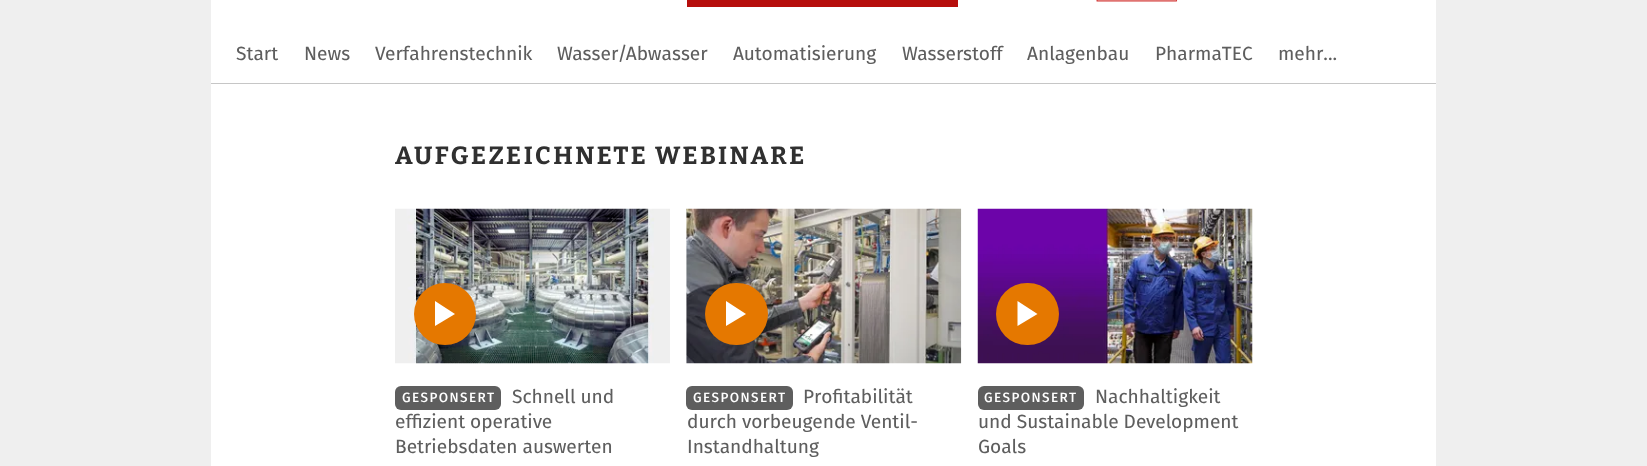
async function draw(canvas) {
	canvas.width = 1647;
	canvas.height = 466;
	const c = canvas.getContext('2d');
	c.miterLimit = 4;
	c.fontKerning = 'normal';
	async function loadImage(src) {
		const img = new Image();
		img.src = src;
		await img.decode();
		return img;
	}

	c.fillStyle = '#efefef';
	c.fillRect(0, 0, 1647, 466);
	for (const [x, y, w, h, color] of [
		[211, 0, 1225, 466, '#fff'],
		[211, 83, 1225, 1, '#c6c6c6'],
		[687, 0, 271, 7, '#b60e0c'],
	]) {
		c.fillStyle = color;
		c.fillRect(x, y, w, h);
	}
	c.drawImage(await loadImage('img1.png'), 1096, 0, 82, 2);
	c.font = '19.1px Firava';
	c.fillStyle = '#5e5e5e';
	for (const [text, x, y] of [
		['Start', 236, 60],
		['News', 304, 60],
		['Verfahrenstechnik', 375, 60],
		['Wasser/Abwasser', 557, 60],
		['Automatisierung', 733, 60],
		['Wasserstoff', 902, 60],
		['Anlagenbau', 1027, 60],
		['PharmaTEC', 1155, 60],
		['mehr...', 1278, 60],
	]) {
		c.fillText(text, x, y);
	}
	c.letterSpacing = '2.5px';
	c.font = 'bold 24.75px Bitter';
	c.fillStyle = '#303030';
	c.fillText('AUFGEZEICHNETE WEBINARE', 395, 164);
	c.drawImage(await loadImage('img2.png'), 395, 208, 275, 156);
	c.fillStyle = '#e57800';
	c.beginPath();
	c.arc(445, 314, 31, 0, 2 * Math.PI);
	c.fill();
	c.fillStyle = '#fff';
	c.beginPath();
	c.moveTo(435, 301);
	c.lineTo(455, 314);
	c.lineTo(435, 326);
	c.closePath();
	c.fill();
	c.fillStyle = '#5e5e5e';
	c.beginPath();
	c.roundRect(395, 386, 106, 24, 6);
	c.fill();
	c.letterSpacing = '1.4px';
	c.font = '500 13.5px Firava';
	c.fillStyle = '#fff';
	c.fillText('GESPONSERT', 402, 402);
	c.letterSpacing = '0px';
	c.font = '19.1px Firava';
	c.fillStyle = '#5e5e5e';
	for (const [text, x, y] of [
		['Schnell und', 512, 403],
		['effizient operative', 395, 428],
		['Betriebsdaten auswerten', 395, 453],
	]) {
		c.fillText(text, x, y);
	}
	c.drawImage(await loadImage('img3.png'), 686, 208, 276, 156);
	c.fillStyle = '#e57800';
	c.beginPath();
	c.roundRect(705, 283, 63, 62, 31);
	c.fill();
	c.fillStyle = '#fff';
	c.beginPath();
	c.moveTo(726, 301);
	c.lineTo(746, 314);
	c.lineTo(726, 326);
	c.closePath();
	c.fill();
	c.fillStyle = '#5e5e5e';
	c.beginPath();
	c.roundRect(686, 386, 107, 24, 6);
	c.fill();
	c.letterSpacing = '1.4px';
	c.font = '500 13.5px Firava';
	c.fillStyle = '#fff';
	c.fillText('GESPONSERT', 693, 402);
	c.letterSpacing = '0px';
	c.font = '19.1px Firava';
	c.fillStyle = '#5e5e5e';
	for (const [text, x, y] of [
		['Profitabilität', 803, 403],
		['durch vorbeugende Ventil-', 687, 428],
		['Instandhaltung', 687, 453],
	]) {
		c.fillText(text, x, y);
	}
	c.drawImage(await loadImage('img4.png'), 977, 208, 276, 156);
	c.fillStyle = '#e57800';
	c.beginPath();
	c.roundRect(996, 283, 63, 62, 31);
	c.fill();
	c.fillStyle = '#fff';
	c.beginPath();
	c.moveTo(1017.5, 301);
	c.lineTo(1037.5, 314);
	c.lineTo(1017.5, 326);
	c.closePath();
	c.fill();
	c.fillStyle = '#5e5e5e';
	c.beginPath();
	c.roundRect(978, 386, 106, 24, 6);
	c.fill();
	c.letterSpacing = '1.4px';
	c.font = '500 13.5px Firava';
	c.fillStyle = '#fff';
	c.fillText('GESPONSERT', 984, 402);
	c.letterSpacing = '0px';
	c.font = '19.1px Firava';
	c.fillStyle = '#5e5e5e';
	for (const [text, x, y] of [
		['Nachhaltigkeit', 1095, 403],
		['und Sustainable Development', 978, 428],
		['Goals', 978, 453],
	]) {
		c.fillText(text, x, y);
	}
}

draw(document.querySelector('canvas'));
